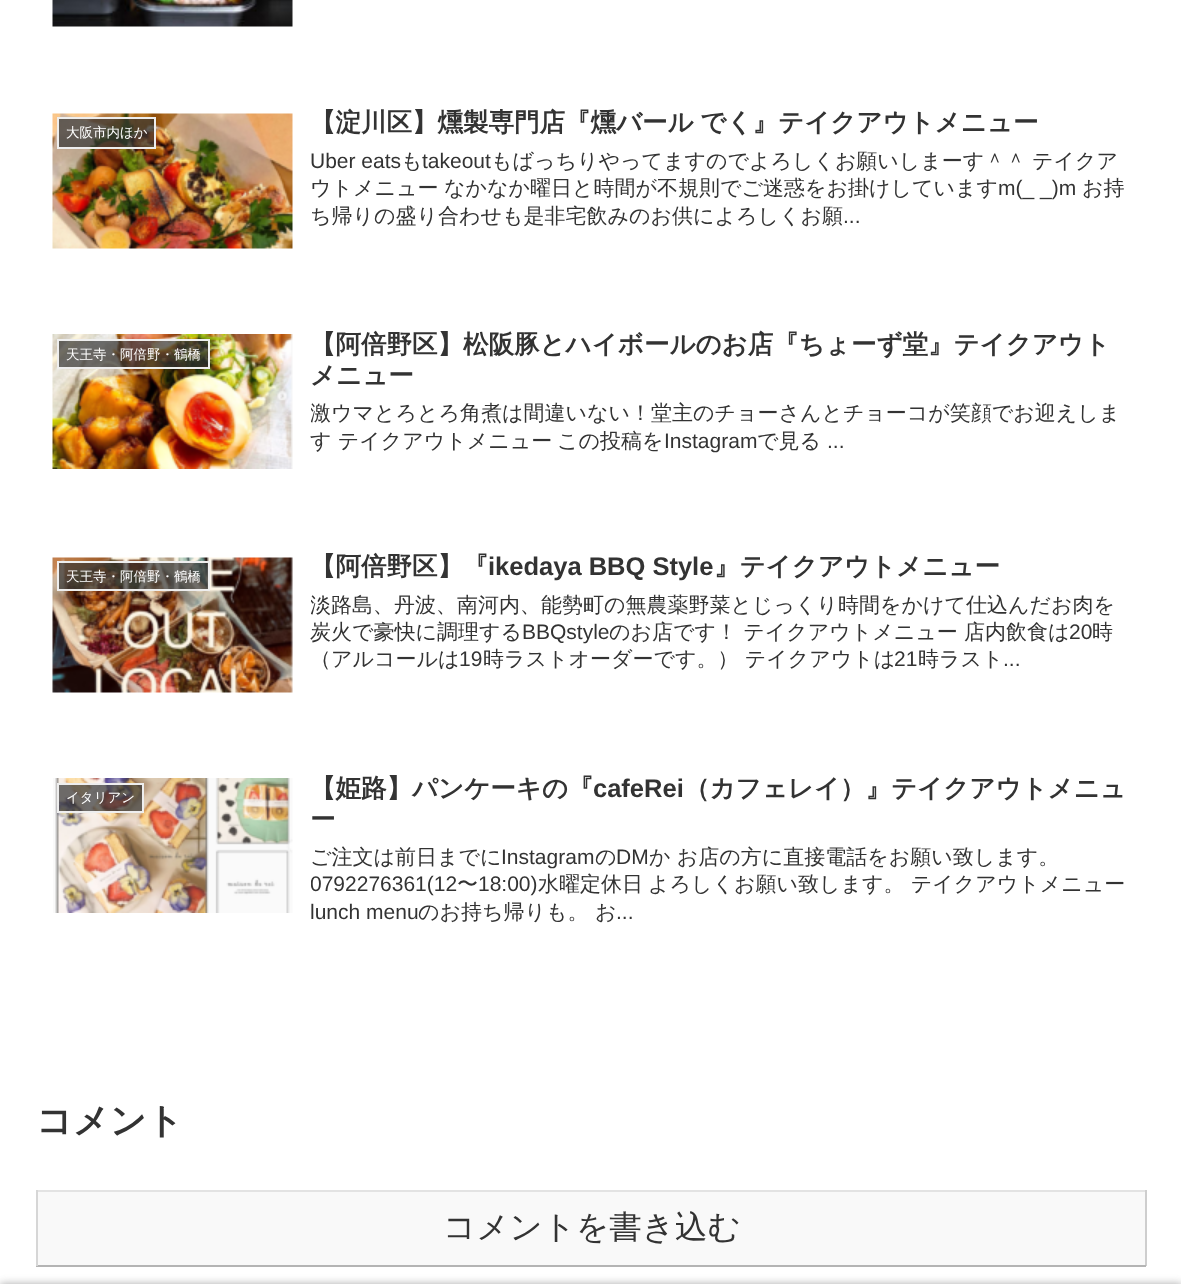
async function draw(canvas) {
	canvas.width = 1181;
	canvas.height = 1284;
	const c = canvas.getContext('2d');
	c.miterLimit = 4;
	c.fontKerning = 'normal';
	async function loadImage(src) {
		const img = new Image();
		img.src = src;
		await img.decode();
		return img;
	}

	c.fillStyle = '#fff';
	c.fillRect(0, 0, 1181, 1284);
	c.drawImage(await loadImage('img1.png'), 52, 0, 241, 27);
	c.drawImage(await loadImage('img2.png'), 52, 113, 241, 136);
	c.fillStyle = '#333333b3';
	c.beginPath();
	c.rect(58, 118, 97, 30);
	c.fill();
	c.strokeStyle = '#eee';
	c.lineWidth = 2;
	c.stroke();
	c.font = '500 13.5px WenQuanYi Zen Hei';
	c.fillStyle = '#fff';
	c.fillText('大阪市内ほか', 66, 137);
	c.wordSpacing = '-1px';
	c.font = 'bold 25.5px WenQuanYi Zen Hei';
	c.fillStyle = '#333';
	c.fillText('【淀川区】燻製専門店『燻バール でく』テイクアウトメニュー', 310, 131);
	c.wordSpacing = '0px';
	c.font = '21px Liberation Sans';
	c.fillText('Uber eats', 310, 168);
	c.font = '500 21px WenQuanYi Zen Hei';
	c.fillText('も', 401, 168);
	c.font = '21px Liberation Sans';
	c.fillText('takeout', 422, 168);
	c.font = '500 21px WenQuanYi Zen Hei';
	for (const [text, x, y] of [
		['もばっちりやってますのでよろしくお願いしまーす＾＾', 491, 168],
		['テイクア', 1032, 168],
		['ウトメニュー', 310, 195],
		['なかなか曜日と時間が不規則でご迷惑をお掛けしています', 444, 195],
	]) {
		c.fillText(text, x, y);
	}
	c.font = '21px Liberation Sans';
	c.fillText('m(_ _)m', 998, 195);
	c.font = '500 21px WenQuanYi Zen Hei';
	c.fillText('お持', 1082, 195);
	c.fillText('ち帰りの盛り合わせも是非宅飲みのお供によろしくお願', 310, 223);
	c.font = '21px Liberation Sans';
	c.fillText('...', 843, 223);
	c.drawImage(await loadImage('img3.png'), 52, 334, 241, 135);
	c.fillStyle = '#333333b3';
	c.beginPath();
	c.rect(58, 340, 151, 28);
	c.fill();
	c.stroke();
	c.font = '500 13.5px WenQuanYi Zen Hei';
	c.fillStyle = '#fff';
	c.fillText('天王寺・阿倍野・鶴橋', 66, 359);
	c.font = 'bold 25.5px WenQuanYi Zen Hei';
	c.fillStyle = '#333';
	c.fillText('【阿倍野区】松阪豚とハイボールのお店『ちょーず堂』テイクアウト', 310, 353);
	c.fillText('メニュー', 310, 384);
	c.save();
	c.beginPath();
	c.rect(311, 399, 819, 56);
	c.clip();
	c.font = '500 21px WenQuanYi Zen Hei';
	c.fillText('激ウマとろとろ角煮は間違いない！堂主のチョーさんとチョーコが笑顔でお迎えしま', 310, 420);
	c.restore();
	c.font = '500 21px WenQuanYi Zen Hei';
	c.fillText('す テイクアウトメニュー', 310, 448);
	c.fillText('この投稿を', 557, 448);
	c.font = '21px Liberation Sans';
	c.fillText('Instagram', 664, 448);
	c.font = '500 21px WenQuanYi Zen Hei';
	c.fillText('で見る', 757, 448);
	c.font = '21px Liberation Sans';
	c.fillText('...', 827, 448);
	c.drawImage(await loadImage('img4.png'), 52, 557, 241, 136);
	c.fillStyle = '#333333b3';
	c.beginPath();
	c.rect(58, 562, 151, 28);
	c.fill();
	c.stroke();
	c.font = '500 13.5px WenQuanYi Zen Hei';
	c.fillStyle = '#fff';
	c.fillText('天王寺・阿倍野・鶴橋', 66, 581);
	c.font = 'bold 25.5px WenQuanYi Zen Hei';
	c.fillStyle = '#333';
	c.fillText('【阿倍野区】『', 310, 575);
	c.font = 'bold 25.5px Liberation Sans';
	c.fillText('ikedaya BBQ Style', 488, 575);
	c.font = 'bold 25.5px WenQuanYi Zen Hei';
	c.fillText('』テイクアウトメニュー', 714, 575);
	c.save();
	c.beginPath();
	c.rect(311, 591, 819, 81);
	c.clip();
	c.font = '500 21px WenQuanYi Zen Hei';
	c.fillText('淡路島、丹波、南河内、能勢町の無農薬野菜とじっくり時間をかけて仕込んだお肉を', 310, 612);
	c.restore();
	c.font = '500 21px WenQuanYi Zen Hei';
	c.fillText('炭火で豪快に調理する', 310, 639);
	c.font = '21px Liberation Sans';
	c.fillText('BBQstyle', 522, 639);
	c.font = '500 21px WenQuanYi Zen Hei';
	c.fillText('のお店です！ テイクアウトメニュー 店内飲食は', 609, 639);
	c.font = '21px Liberation Sans';
	c.fillText('20', 1069, 639);
	c.font = '500 21px WenQuanYi Zen Hei';
	c.fillText('時', 1092, 639);
	c.fillText('（アルコールは', 310, 666);
	c.font = '21px Liberation Sans';
	c.fillText('19', 459, 666);
	c.font = '500 21px WenQuanYi Zen Hei';
	c.fillText('時ラストオーダーです。） テイクアウトは', 483, 666);
	c.font = '21px Liberation Sans';
	c.fillText('21', 894, 666);
	c.font = '500 21px WenQuanYi Zen Hei';
	c.fillText('時ラスト', 918, 666);
	c.font = '21px Liberation Sans';
	c.fillText('...', 1003, 666);
	c.drawImage(await loadImage('img5.png'), 53, 778, 240, 135);
	c.fillStyle = '#333333b3';
	c.beginPath();
	c.rect(58, 784, 85, 28);
	c.fill();
	c.stroke();
	c.font = '500 13.5px WenQuanYi Zen Hei';
	c.fillStyle = '#fff';
	c.fillText('イタリアン', 66, 802);
	c.font = 'bold 25.5px WenQuanYi Zen Hei';
	c.fillStyle = '#333';
	c.fillText('【姫路】パンケーキの『', 310, 797);
	c.font = 'bold 25.5px Liberation Sans';
	c.fillText('cafeRei', 593, 797);
	c.font = 'bold 25.5px WenQuanYi Zen Hei';
	c.fillText('（カフェレイ）』テイクアウトメニュ', 684, 797);
	c.fillText('ー', 310, 828);
	c.font = '500 21px WenQuanYi Zen Hei';
	c.fillText('ご注文は前日までに', 310, 864);
	c.font = '21px Liberation Sans';
	c.fillText('Instagram', 501, 864);
	c.font = '500 21px WenQuanYi Zen Hei';
	c.fillText('の', 595, 864);
	c.font = '21px Liberation Sans';
	c.fillText('DM', 616, 864);
	c.font = '500 21px WenQuanYi Zen Hei';
	c.fillText('か お店の方に直接電話をお願い致します。', 649, 864);
	c.save();
	c.beginPath();
	c.rect(311, 843, 819, 83);
	c.clip();
	c.font = '21px Liberation Sans';
	c.fillText('0792276361(12', 310, 891);
	c.restore();
	c.fillText('〜', 457, 891);
	c.font = '21px Liberation Sans';
	c.fillText('18:00)', 478, 891);
	c.font = '500 21px WenQuanYi Zen Hei';
	c.fillText('水曜定休日', 538, 891);
	c.fillText('よろしくお願い致します。 テイクアウトメニュー', 648, 891);
	c.font = '21px Liberation Sans';
	c.fillText('lunch menu', 310, 919);
	c.font = '500 21px WenQuanYi Zen Hei';
	c.fillText('のお持ち帰りも。', 418, 919);
	c.fillText('お', 595, 919);
	c.font = '21px Liberation Sans';
	c.fillText('...', 616, 919);
	c.font = 'bold 36px WenQuanYi Zen Hei';
	c.fillText('コメント', 36, 1133);
	for (const [x, y, w, h, color] of [
		[38, 1192, 1107, 73, '#f9f9f9'],
		[36, 1190, 1110, 2, '#e3e3e3'],
		[1145, 1190, 2, 76, '#cecece'],
		[36, 1265, 1110, 2, '#b4b4b4'],
		[36, 1190, 2, 76, '#d6d6d6'],
	]) {
		c.fillStyle = color;
		c.fillRect(x, y, w, h);
	}
	c.font = '500 32.5px WenQuanYi Zen Hei';
	c.fillStyle = '#333';
	c.fillText('コメントを書き込む', 443, 1238);
	c.fillStyle = '#a9a9a9';
	c.filter = 'blur(4px)';
	c.beginPath();
	c.rect(0, 1284, 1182, 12);
	c.fill();
	c.filter = 'none';
}

draw(document.querySelector('canvas'));
